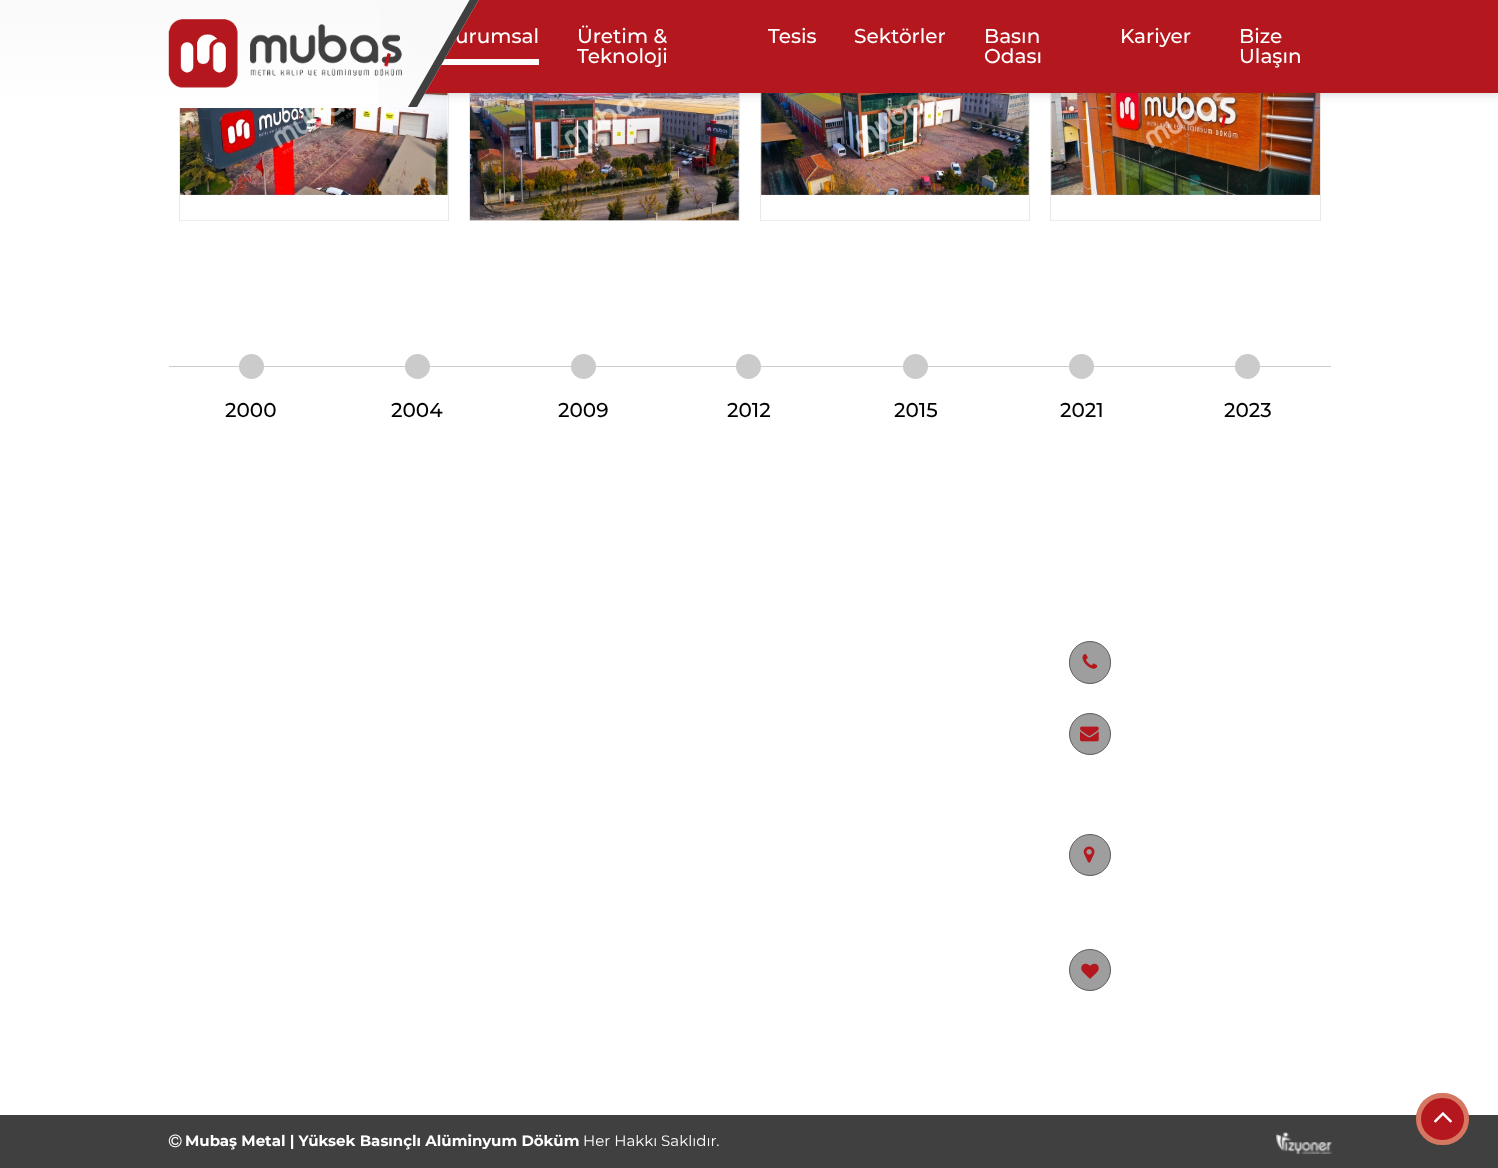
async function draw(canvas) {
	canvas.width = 1498;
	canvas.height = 1168;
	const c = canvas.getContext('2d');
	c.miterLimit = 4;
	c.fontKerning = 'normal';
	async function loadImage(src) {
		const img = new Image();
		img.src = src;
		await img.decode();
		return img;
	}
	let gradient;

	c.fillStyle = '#fff';
	c.fillRect(0, 0, 1498, 1168);
	c.strokeStyle = '#eae7e7';
	c.strokeRect(179.5, 18.5, 269, 202);
	c.drawImage(await loadImage('img2.png'), 180, 93, 268, 128);
	c.strokeRect(469.5, 18.5, 270, 202);
	c.drawImage(await loadImage('img3.png'), 470, 93, 269, 128);
	c.strokeRect(760.5, 18.5, 269, 202);
	c.drawImage(await loadImage('img4.png'), 761, 93, 268, 128);
	c.strokeRect(1050.5, 18.5, 270, 202);
	c.drawImage(await loadImage('img5.png'), 1051, 93, 269, 128);
	c.fillStyle = '#00000033';
	c.filter = 'blur(6px)';
	c.beginPath();
	c.rect(1, 0, 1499, 93);
	c.fill();
	c.filter = 'none';
	c.fillStyle = '#b4181e';
	c.fillRect(425, 0, 1073, 93);
	c.font = '500 20px Montserrat';
	c.fillStyle = '#fff';
	c.fillText('urumsal', 455, 43);
	c.fillStyle = '#fdfdfd';
	c.fillRect(441, 59, 98, 6);
	gradient = c.createLinearGradient(337, -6.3, 272, 107);
	gradient.addColorStop(0, '#f9f9f9');
	gradient.addColorStop(1, '#fff');
	c.fillStyle = gradient;
	c.beginPath();
	c.moveTo(201, -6);
	c.lineTo(482, -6);
	c.lineTo(417, 107);
	c.lineTo(135, 107);
	c.closePath();
	c.fill();
	gradient = c.createLinearGradient(-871, -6.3, -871, 108);
	gradient.addColorStop(0, '#f9f9f9');
	gradient.addColorStop(1, '#fff');
	c.fillStyle = gradient;
	c.fillRect(0, 0, 379, 108);
	c.fillStyle = '#404041';
	c.beginPath();
	c.moveTo(473, -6);
	c.lineTo(482, -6);
	c.lineTo(417, 107);
	c.lineTo(408, 107);
	c.closePath();
	c.fill();
	c.drawImage(await loadImage('img1.png'), 168, 19, 234, 69);
	c.fillStyle = '#fff';
	for (const [text, x, y] of [
		['Üretim &', 577, 43],
		['Teknoloji', 577, 63],
		['Tesis', 768, 43],
		['Sektörler', 854, 43],
		['Basın', 984, 43],
		['Odası', 984, 63],
		['Kariyer', 1120, 43],
		['Bize', 1239, 43],
		['Ulaşın', 1239, 63],
	]) {
		c.fillText(text, x, y);
	}
	c.fillStyle = '#cbcbcb';
	c.fillRect(169, 366, 1162, 1);
	c.beginPath();
	c.arc(251.5, 366.5, 12.5, 0, 2 * Math.PI);
	c.fill();
	c.fillStyle = '#000';
	c.fillText('2000', 225, 417);
	c.fillStyle = '#cbcbcb';
	c.beginPath();
	c.arc(417.5, 366.5, 12.5, 0, 2 * Math.PI);
	c.fill();
	c.fillStyle = '#000';
	c.fillText('2004', 391, 417);
	c.fillStyle = '#cbcbcb';
	c.beginPath();
	c.arc(583.5, 366.5, 12.5, 0, 2 * Math.PI);
	c.fill();
	c.fillStyle = '#000';
	c.fillText('2009', 558, 417);
	c.fillStyle = '#cbcbcb';
	c.beginPath();
	c.arc(748.5, 366.5, 12.5, 0, 2 * Math.PI);
	c.fill();
	c.fillStyle = '#000';
	c.fillText('2012', 727, 417);
	c.fillStyle = '#cbcbcb';
	c.beginPath();
	c.arc(915.5, 366.5, 12.5, 0, 2 * Math.PI);
	c.fill();
	c.fillStyle = '#000';
	c.fillText('2015', 894, 417);
	c.fillStyle = '#cbcbcb';
	c.beginPath();
	c.arc(1081.5, 366.5, 12.5, 0, 2 * Math.PI);
	c.fill();
	c.fillStyle = '#000';
	c.fillText('2021', 1060, 417);
	c.fillStyle = '#cbcbcb';
	c.beginPath();
	c.arc(1247.5, 366.5, 12.5, 0, 2 * Math.PI);
	c.fill();
	c.fillStyle = '#000';
	c.fillText('2023', 1224, 417);
	c.fillStyle = '#9e9e9e';
	c.beginPath();
	c.roundRect(1069.5, 641.5, 41, 42, 20.5);
	c.fill();
	c.strokeStyle = '#5d5d5d';
	c.stroke();
	c.drawImage(await loadImage('img6.png'), 1082, 654, 16, 15);
	c.beginPath();
	c.arc(1090, 734, 20.5, 0, 2 * Math.PI);
	c.fill();
	c.stroke();
	c.drawImage(await loadImage('img7.png'), 1080, 726, 19, 16);
	c.beginPath();
	c.arc(1090, 855, 20.5, 0, 2 * Math.PI);
	c.fill();
	c.stroke();
	c.drawImage(await loadImage('img8.png'), 1083, 846, 12, 17);
	c.beginPath();
	c.arc(1090, 970, 20.5, 0, 2 * Math.PI);
	c.fill();
	c.stroke();
	c.drawImage(await loadImage('img9.png'), 1081, 963, 18, 16);
	c.fillStyle = '#404041';
	c.fillRect(0, 1115, 1498, 53);
	c.drawImage(await loadImage('img10.png'), 168, 1134, 14, 14);
	c.font = 'bold 15px Montserrat';
	c.fillStyle = '#fff';
	c.fillText('Mubaş Metal | Yüksek Basınçlı Alüminyum Döküm', 185, 1146);
	c.font = '15px Montserrat';
	c.fillText('Her Hakkı Saklıdır.', 583, 1146);
	c.drawImage(await loadImage('img11.png'), 1276, 1132, 56, 22);
	c.fillStyle = '#b4181e';
	c.beginPath();
	c.roundRect(1416, 1093, 53, 52, 26);
	c.fill();
	c.beginPath();
	c.roundRect(1418.5, 1095.5, 48, 47, 23.5);
	c.strokeStyle = '#f8d5a380';
	c.lineWidth = 5;
	c.stroke();
	c.drawImage(await loadImage('img12.png'), 1434, 1112, 18, 11);
}

draw(document.querySelector('canvas'));
